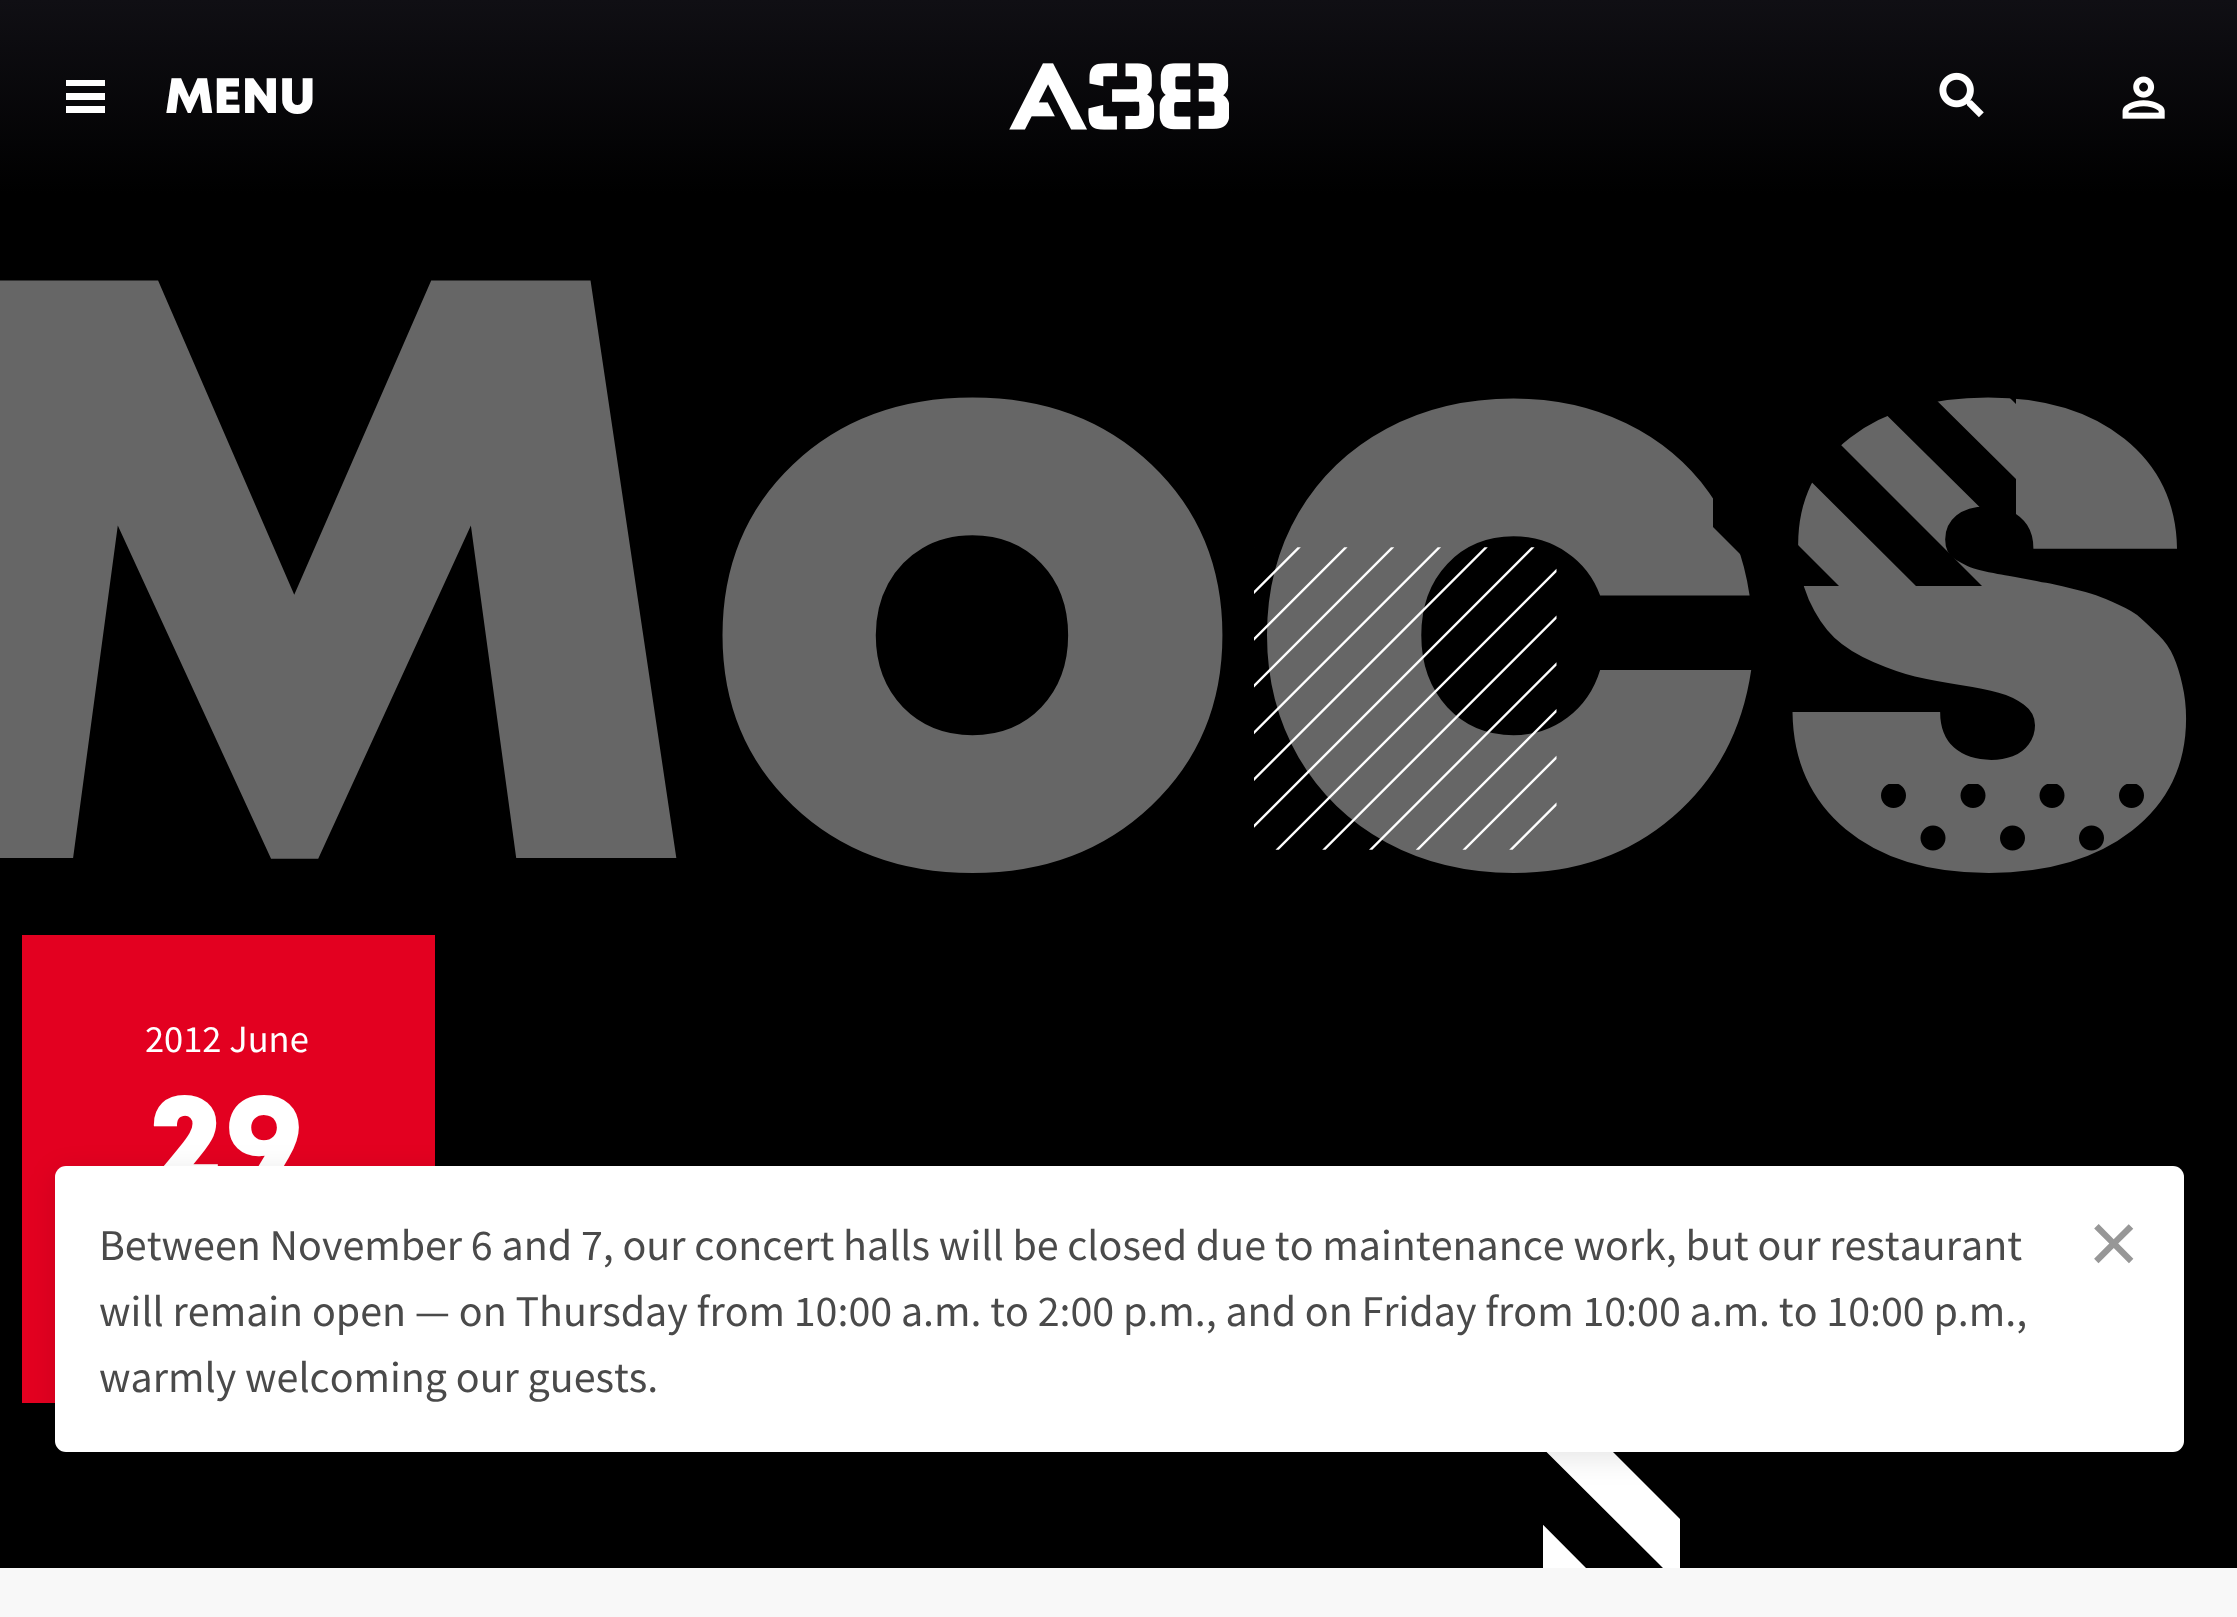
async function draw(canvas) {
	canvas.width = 2237;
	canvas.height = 1617;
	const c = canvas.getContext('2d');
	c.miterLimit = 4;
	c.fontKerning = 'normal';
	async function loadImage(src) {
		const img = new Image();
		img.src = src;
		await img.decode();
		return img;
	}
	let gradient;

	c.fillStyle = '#f8f8f8';
	c.fillRect(0, 0, 2237, 1617);
	gradient = c.createLinearGradient(1119, 0, 1119, 193);
	gradient.addColorStop(0, '#100f14');
	gradient.addColorStop(1, '#000');
	c.fillStyle = gradient;
	c.fillRect(0, 0, 2237, 193);
	for (const [x, y, w, h, color] of [
		[66, 80, 39, 6, '#fff'],
		[66, 93, 39, 7, '#fff'],
		[66, 106, 39, 7, '#fff'],
	]) {
		c.fillStyle = color;
		c.fillRect(x, y, w, h);
	}
	c.font = '49.5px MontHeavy';
	c.fillText('MENU', 165, 113);
	c.drawImage(await loadImage('img1.png'), 1009, 63, 220, 67);
	c.drawImage(await loadImage('img2.png'), 1939, 72, 45, 46);
	c.drawImage(await loadImage('img3.png'), 2122, 76, 43, 43);
	c.fillStyle = '#000';
	c.fillRect(0, 193, 2237, 1375);
	c.font = '825px MontHeavy';
	c.fillStyle = '#666';
	c.fillText('Mocs', -110, 858);
	c.fillStyle = '#000';
	c.beginPath();
	c.moveTo(1958, 283);
	c.lineTo(1894, 283);
	c.lineTo(2016, 404);
	c.lineTo(2016, 339);
	c.closePath();
	c.moveTo(1713, 384);
	c.lineTo(1916, 586);
	c.lineTo(1982, 586);
	c.lineTo(1713, 317);
	c.closePath();
	c.moveTo(1753, 283);
	c.lineTo(2016, 543);
	c.lineTo(2016, 479);
	c.lineTo(1818, 283);
	c.closePath();
	c.moveTo(1713, 527);
	c.lineTo(1772, 586);
	c.lineTo(1839, 586);
	c.lineTo(1713, 460);
	c.closePath();
	c.fill();
	c.drawImage(await loadImage('img4.png'), 1254, 547, 303, 303);
	c.drawImage(await loadImage('img5.png'), 1881, 784, 263, 67);
	c.save();
	c.beginPath();
	c.rect(1543, 1265, 137, 303);
	c.clip();
	c.fillStyle = '#fff';
	c.beginPath();
	c.moveTo(1705, 1265);
	c.lineTo(1641, 1265);
	c.lineTo(1763, 1386);
	c.lineTo(1763, 1321);
	c.closePath();
	c.moveTo(1460, 1366);
	c.lineTo(1663, 1568);
	c.lineTo(1729, 1568);
	c.lineTo(1460, 1299);
	c.closePath();
	c.moveTo(1500, 1265);
	c.lineTo(1763, 1525);
	c.lineTo(1763, 1461);
	c.lineTo(1565, 1265);
	c.closePath();
	c.moveTo(1460, 1509);
	c.lineTo(1519, 1568);
	c.lineTo(1586, 1568);
	c.lineTo(1460, 1441);
	c.closePath();
	c.fill();
	c.restore();
	c.fillStyle = '#e30020';
	c.fillRect(22, 935, 413, 468);
	c.font = '38.5px Source Sans Pro';
	c.fillStyle = '#fff';
	c.fillText('2012 June', 145, 1052);
	c.letterSpacing = '3px';
	c.font = '132px MontHeavy';
	c.fillText('29', 149, 1185);
	c.fillStyle = '#0000001a';
	c.filter = 'blur(14px)';
	c.beginPath();
	c.roundRect(55, 1172, 2129, 286, 11);
	c.fill();
	c.filter = 'none';
	c.fillStyle = '#fff';
	c.beginPath();
	c.roundRect(55, 1166, 2129, 286, 11);
	c.fill();
	c.letterSpacing = '0px';
	c.font = '44px Source Sans Pro';
	c.fillStyle = '#4a4a4a';
	for (const [text, x, y] of [
		['Between November 6 and 7, our concert halls will be closed due to maintenance work, but our restaurant', 99, 1260],
		['will remain open — on Thursday from 10:00 a.m. to 2:00 p.m., and on Friday from 10:00 a.m. to 10:00 p.m.,', 99, 1326],
		['warmly welcoming our guests.', 99, 1392],
	]) {
		c.fillText(text, x, y);
	}
	c.font = '88px Liberation Sans';
	c.fillStyle = '#979797';
	c.fillText('×', 2088, 1273);
}

draw(document.querySelector('canvas'));
